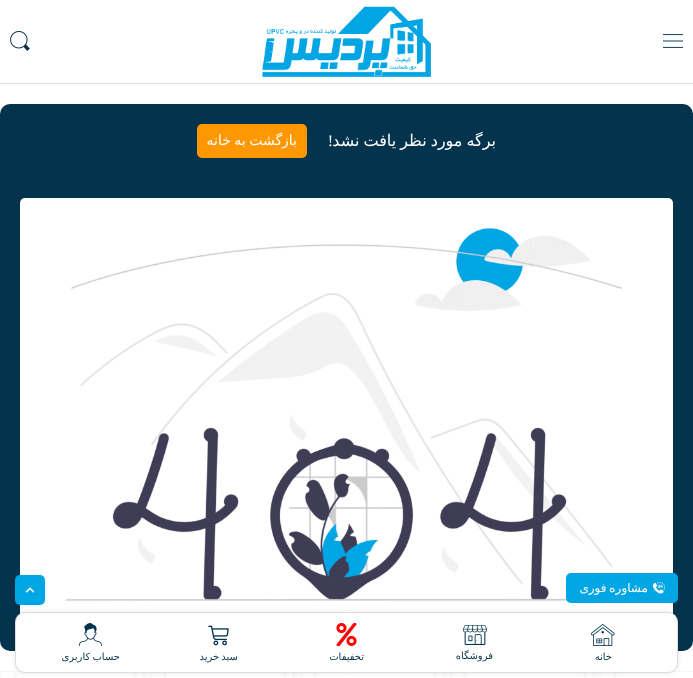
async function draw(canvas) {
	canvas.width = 693;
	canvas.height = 678;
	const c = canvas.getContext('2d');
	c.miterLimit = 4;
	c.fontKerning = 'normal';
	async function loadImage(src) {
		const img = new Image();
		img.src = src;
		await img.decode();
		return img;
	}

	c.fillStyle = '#fff';
	c.fillRect(0, 0, 693, 678);
	c.fillStyle = '#ddd';
	c.fillRect(0, 83, 693, 1);
	c.drawImage(await loadImage('img1.png'), 663, 34, 20, 14);
	c.drawImage(await loadImage('img2.png'), 262, 6, 169, 71);
	c.drawImage(await loadImage('img3.png'), 10, 31, 20, 20);
	c.fillStyle = '#04334d';
	c.beginPath();
	c.roundRect(0, 104, 693, 547, 10);
	c.fill();
	c.wordSpacing = '-1px';
	c.direction = 'rtl';
	c.font = '16px DejaVu Sans';
	c.fillStyle = '#fff';
	c.fillText('برگه مورد نظر یافت نشد', 496, 146);
	c.wordSpacing = '0px';
	c.font = '16px Liberation Serif';
	c.fillText('!', 333, 146);
	c.fillStyle = '#ff9800';
	c.beginPath();
	c.roundRect(197, 124, 110, 34, 5);
	c.fill();
	c.wordSpacing = '-1px';
	c.font = '14px DejaVu Sans';
	c.fillStyle = '#fff';
	c.fillText('بازگشت به خانه', 297, 145);
	c.drawImage(await loadImage('img4.png'), 20, 198, 653, 416);
	c.drawImage(await loadImage('img5.png'), 0, 672, 619, 6);
	c.fillStyle = '#f5f5f5';
	c.fillRect(0, 671, 693, 1);
	c.fillStyle = '#00a5e3';
	c.beginPath();
	c.roundRect(566, 573, 112, 30, 5);
	c.fill();
	c.drawImage(await loadImage('img6.png'), 653, 582, 12, 12);
	c.font = '12px DejaVu Sans';
	c.fillStyle = '#fff';
	c.fillText('مشاوره فوری', 648, 592);
	c.fillStyle = '#00a5e3';
	c.beginPath();
	c.roundRect(15, 575, 30, 30, 5);
	c.fill();
	c.drawImage(await loadImage('img7.png'), 25, 587, 10, 6);
	c.fillStyle = '#fffffff2';
	c.fillRect(0, 672, 619, 6);
	c.fillStyle = '#0000001a';
	c.filter = 'blur(2.5px)';
	c.beginPath();
	c.roundRect(15, 612, 663, 61, 10);
	c.fill();
	c.filter = 'none';
	c.fillStyle = '#fff';
	c.beginPath();
	c.roundRect(15.5, 612.5, 662, 60, 9.5);
	c.fill();
	c.strokeStyle = '#ddd';
	c.stroke();
	c.drawImage(await loadImage('img8.png'), 591, 624, 24, 22);
	c.wordSpacing = '0px';
	c.font = '10px DejaVu Sans';
	c.fillStyle = '#04334d';
	c.fillText('خانه', 612, 660);
	c.drawImage(await loadImage('img9.png'), 463, 625, 24, 20);
	c.fillText('فروشگاه', 493, 659);
	c.drawImage(await loadImage('img10.png'), 336, 623, 21, 23);
	c.fillText('تخفیفات', 364, 660);
	c.drawImage(await loadImage('img11.png'), 208, 625, 21, 21);
	c.wordSpacing = '-1px';
	c.fillText('سبد خرید', 238, 660);
	c.drawImage(await loadImage('img12.png'), 79, 623, 23, 23);
	c.fillText('حساب کاربری', 120, 660);
}

draw(document.querySelector('canvas'));
